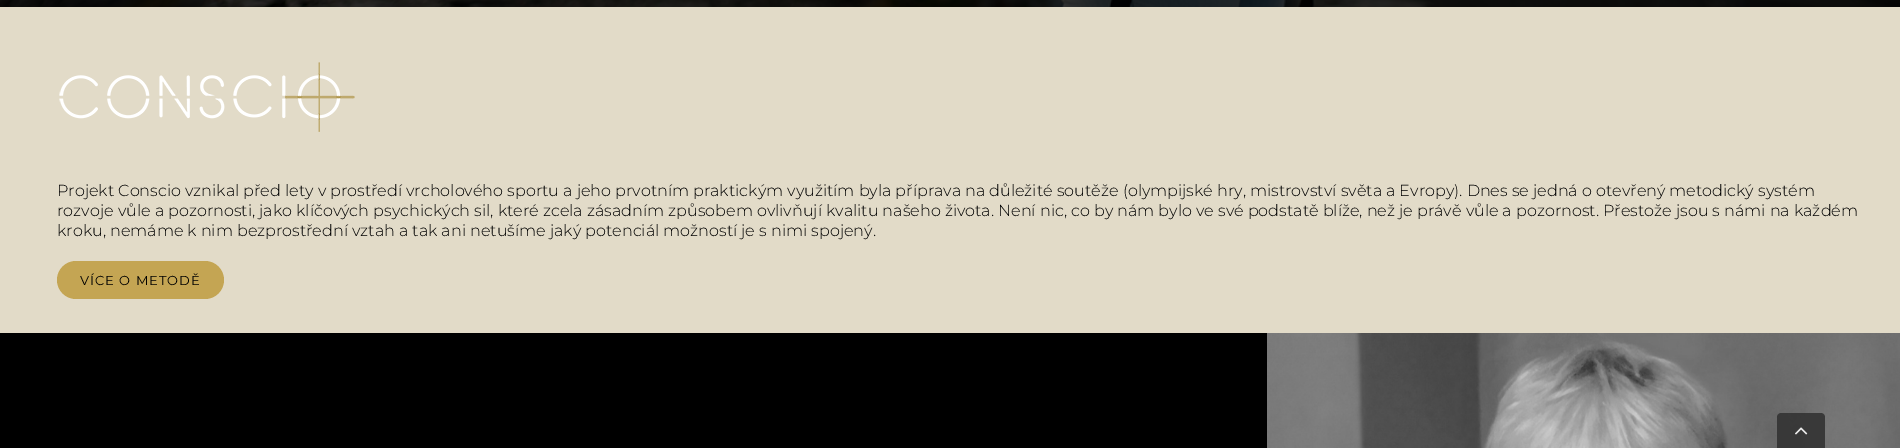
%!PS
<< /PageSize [1900 448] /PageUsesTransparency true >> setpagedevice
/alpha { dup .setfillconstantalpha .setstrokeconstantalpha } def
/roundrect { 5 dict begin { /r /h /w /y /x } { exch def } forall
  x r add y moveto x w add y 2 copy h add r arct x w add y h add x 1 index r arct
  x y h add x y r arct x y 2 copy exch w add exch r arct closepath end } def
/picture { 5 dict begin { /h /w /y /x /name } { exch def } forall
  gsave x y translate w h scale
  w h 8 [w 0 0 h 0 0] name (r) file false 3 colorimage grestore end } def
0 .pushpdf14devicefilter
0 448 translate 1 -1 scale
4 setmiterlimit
0.886 0.859 0.784 setrgbcolor
0 0 1900 448 rectfill
(img1.rgb) 0 0 1900 7 picture
(img2.rgb) 59 62 296 70 picture
/Montserrat-Light [16 0 0 -16 0 0] selectfont
0 setgray
57 196 moveto (Projekt Conscio vznikal před lety v prostředí vrcholového sportu a jeho prvotním praktickým využitím byla příprava na důležité soutěže \(olympijské hry, mistrovství světa a Evropy\). Dnes se jedná o otevřený metodický systém) show
57 216 moveto (rozvoje vůle a pozornosti, jako klíčových psychických sil, které zcela zásadním způsobem ovlivňují kvalitu našeho života. Není nic, co by nám bylo ve své podstatě blíže, než je právě vůle a pozornost. Přestože jsou s námi na každém) show
57 236 moveto (kroku, nemáme k nim bezprostřední vztah a tak ani netušíme jaký potenciál možností je s nimi spojený.) show
0.769 0.647 0.325 setrgbcolor
57 261 167 38 19 roundrect fill
/Montserrat-Regular [13 0 0 -13 0 0] selectfont
0 setgray
80 285 moveto 1 0 (VÍCE O METODĚ) ashow
0 333 1267 115 rectfill
(img3.rgb) 1267 333 633 115 picture
0.9 alpha
0.2 setgray
newpath 1781 413 moveto 1821 413 lineto 1823 413 1825 415 1825 417 curveto 1825 448 lineto 1777 448 lineto 1777 417 lineto 1777 415 1779 413 1781 413 curveto closepath fill
1 alpha
(img4.rgb) 1795 427 13 8 picture
.poppdf14devicefilter showpage
